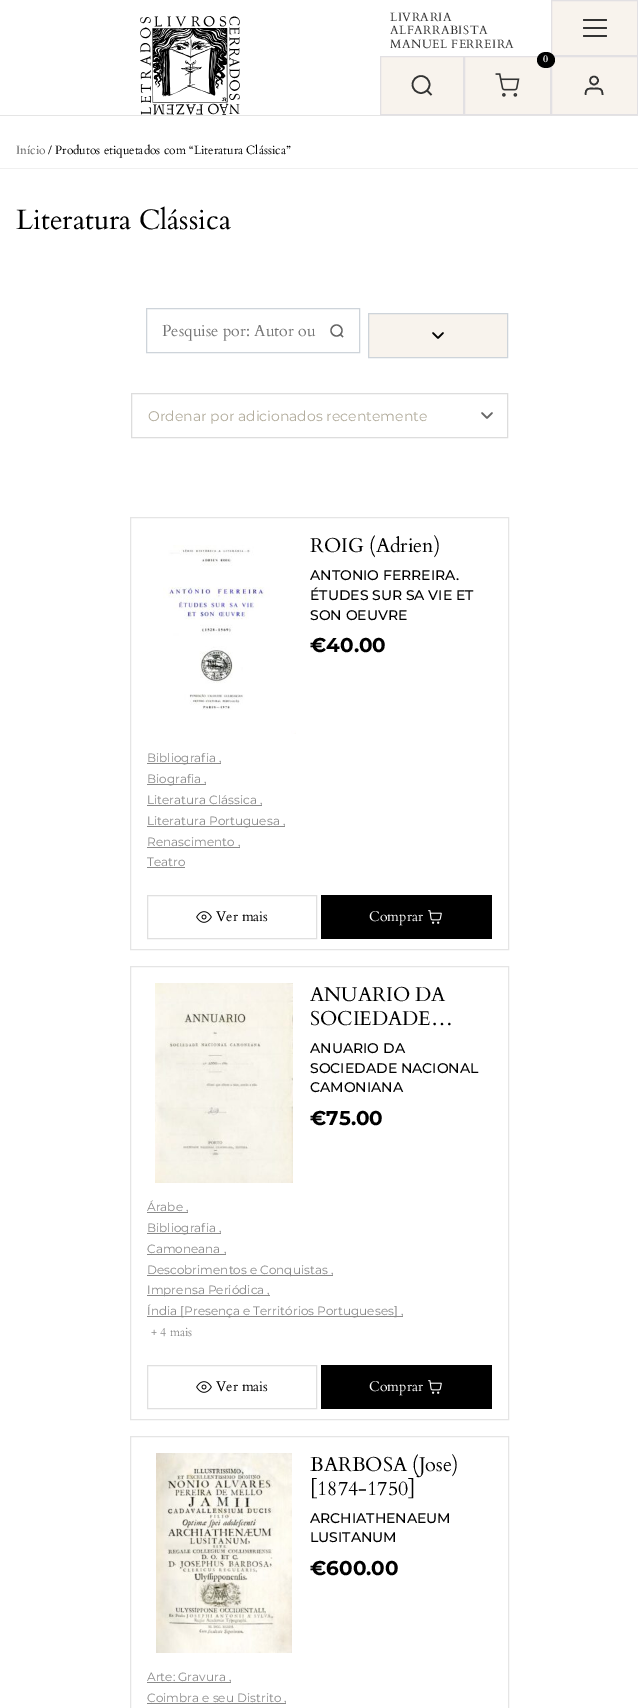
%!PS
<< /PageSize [638 1708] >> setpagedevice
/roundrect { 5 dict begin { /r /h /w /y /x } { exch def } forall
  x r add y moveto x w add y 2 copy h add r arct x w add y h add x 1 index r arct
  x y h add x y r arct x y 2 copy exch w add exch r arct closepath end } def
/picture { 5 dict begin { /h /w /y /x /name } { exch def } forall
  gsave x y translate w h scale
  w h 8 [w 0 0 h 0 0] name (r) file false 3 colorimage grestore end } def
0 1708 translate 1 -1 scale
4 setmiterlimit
1 setgray
0 0 638 1708 rectfill
0.898 setgray
0 115 638 1 rectfill
(img1.rgb) 140 16 100 99 picture
/Cardo-Regular [12 0 0 -12 0 0] selectfont
0.2 setgray
390 21 moveto 0.5 0 (LIVRARIA) ashow
390 34 moveto 0.5 0 (ALFARRABISTA) ashow
390 48 moveto 0.5 0 (MANUEL FERREIRA) ashow
0.973 0.953 0.929 setrgbcolor
newpath 551.5 0.5 moveto 637.5 0.5 lineto 637.5 55.5 lineto 551.5 55.5 lineto closepath gsave fill grestore
0.886 0.878 0.89 setrgbcolor
stroke
0.2 setgray
583 19 24 2 1 roundrect fill
583 27 24 2 1 roundrect fill
583 35 24 2 1 roundrect fill
0.973 0.953 0.929 setrgbcolor
381 57 256 57 rectfill
0.886 0.878 0.89 setrgbcolor
380.5 56.5 83 58 rectstroke
0.2 setgray
1.6 setlinewidth
newpath 421 84.5 8.5 0 360 arc closepath stroke
newpath 431.5 95 moveto 427 90.5 lineto stroke
0.886 0.878 0.89 setrgbcolor
1 setlinewidth
464.5 56.5 86 58 rectstroke
551.5 56.5 86 58 rectstroke
0 setgray
newpath 546 52 moveto 551 52 555 55.5 555 60 curveto 555 64.5 551 68 546 68 curveto 541 68 537 64.5 537 60 curveto 537 55.5 541 52 546 52 curveto closepath fill
/Cardo-Bold [10 0 0 -10 0 0] selectfont
1 setgray
543 62 moveto (0) show
(img2.rgb) 495 73 25 24 picture
0.2 setgray
1.6 setlinewidth
newpath 602.5 95 moveto 602.5 88 600 88.5 594 88.5 curveto 588 88.5 585.5 88 585.5 95 curveto stroke
newpath 594 80.5 4 0 360 arc closepath stroke
0.941 setgray
0 168 638 1 rectfill
/Cardo-Regular [12 0 0 -12 0 0] selectfont
0.4 setgray
16 154 moveto (Início) show
0 setgray
48 154 moveto (/ Produtos etiquetados com “Literatura Clássica”) show
/Cardo-Regular [28 0 0 -28 0 0] selectfont
16 229 moveto (Literatura Clássica) show
0.808 0.831 0.855 setrgbcolor
1 setlinewidth
146.5 308.5 213 44 rectstroke
/Cardo-Regular [16 0 0 -16 0 0] selectfont
0.459 setgray
162 336 moveto (Pesquise por: Autor ou) show
0.4 setgray
1.3 setlinewidth
newpath 336.5 330.5 5.5 0 360 arc closepath stroke
newpath 343 337 moveto 340 334 lineto stroke
0.973 0.953 0.929 setrgbcolor
newpath 368.5 313.5 moveto 507.5 313.5 lineto 507.5 357.5 lineto 368.5 357.5 lineto closepath gsave fill grestore
0.808 0.831 0.855 setrgbcolor
1 setlinewidth
stroke
0 setgray
1.5 setlinewidth
1 setlinecap
1 setlinejoin
newpath 433 333 moveto 438 338 lineto 443 333 lineto stroke
0.867 setgray
1 setlinewidth
0 setlinecap
0 setlinejoin
131.5 393.5 376 44 rectstroke
/Montserrat-Regular [14 0 0 -14 0 0] selectfont
0.694 0.671 0.608 setrgbcolor
148 421 moveto (Ordenar por adicionados recentemente) show
0.4 setgray
1.5 setlinewidth
1 setlinecap
1 setlinejoin
newpath 482 413 moveto 487 418 lineto 492 413 lineto stroke
0.898 setgray
1 setlinewidth
0 setlinecap
0 setlinejoin
130.5 517.5 378 432 rectstroke
(img3.rgb) 163 545 133 189 picture
/Cardo-Regular [20 0 0 -20 0 0] selectfont
0 setgray
310 552 moveto (ROIG \(Adrien\)) show
/Montserrat-Medium [14 0 0 -14 0 0] selectfont
310 580 moveto (ANTONIO FERREIRA.) show
310 600 moveto (ÉTUDES SUR SA VIE ET) show
310 620 moveto (SON OEUVRE) show
/Montserrat-Bold [20 0 0 -20 0 0] selectfont
310 652 moveto (€40.00) show
0.541 setgray
147 763 74 1 rectfill
/Montserrat-Regular [12 0 0 -12 0 0] selectfont
147 762 moveto (Bibliografia ,) show
147 784 59 1 rectfill
147 783 moveto (Biografia ,) show
147 805 115 1 rectfill
147 804 moveto (Literatura Clássica ,) show
147 826 138 1 rectfill
147 825 moveto (Literatura Portuguesa ,) show
147 847 93 1 rectfill
147 846 moveto (Renascimento ,) show
147 866 moveto (Teatro) show
147 867 38 1 rectfill
0.878 setgray
147.5 895.5 169 43 rectstroke
(img4.rgb) 196 911 16 12 picture
/Cardo-Regular [14 0 0 -14 0 0] selectfont
0 setgray
216 921 moveto (Ver mais) show
321 895 171 44 rectfill
1 setgray
369 921 moveto (Comprar) show
(img5.rgb) 428 910 14 14 picture
0.898 setgray
130.5 966.5 378 453 rectstroke
(img6.rgb) 155 983 138 200 picture
/Cardo-Regular [20 0 0 -20 0 0] selectfont
0 setgray
310 1001 moveto (ANUARIO DA) show
310 1025 moveto (SOCIEDADE…) show
/Montserrat-Medium [14 0 0 -14 0 0] selectfont
310 1053 moveto (ANUARIO DA) show
310 1073 moveto (SOCIEDADE NACIONAL) show
310 1092 moveto (CAMONIANA) show
/Montserrat-Bold [20 0 0 -20 0 0] selectfont
310 1125 moveto (€75.00) show
0.541 setgray
147 1212 41 1 rectfill
/Montserrat-Regular [12 0 0 -12 0 0] selectfont
147 1211 moveto (Árabe ,) show
147 1233 74 1 rectfill
147 1232 moveto (Bibliografia ,) show
147 1254 79 1 rectfill
147 1253 moveto (Camoneana ,) show
147 1275 186 1 rectfill
147 1274 moveto (Descobrimentos e Conquistas ,) show
147 1295 123 1 rectfill
147 1294 moveto (Imprensa Periódica ,) show
147 1316 256 1 rectfill
147 1315 moveto (Índia [Presença e Territórios Portugueses] ,) show
/Cardo-Regular [12 0 0 -12 0 0] selectfont
151 1336 moveto (+ 4 mais) show
0.878 setgray
147.5 1365.5 169 43 rectstroke
(img4.rgb) 196 1381 16 12 picture
/Cardo-Regular [14 0 0 -14 0 0] selectfont
0 setgray
216 1391 moveto (Ver mais) show
321 1365 171 44 rectfill
1 setgray
369 1391 moveto (Comprar) show
(img5.rgb) 428 1380 14 14 picture
0.898 setgray
130.5 1436.5 378 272 rectstroke
(img7.rgb) 156 1453 136 200 picture
/Cardo-Regular [20 0 0 -20 0 0] selectfont
0 setgray
310 1471 moveto (BARBOSA \(Jose\)) show
310 1495 moveto ([1874-1750]) show
/Montserrat-Medium [14 0 0 -14 0 0] selectfont
310 1523 moveto (ARCHIATHENAEUM) show
310 1542 moveto (LUSITANUM) show
/Montserrat-Bold [20 0 0 -20 0 0] selectfont
310 1575 moveto (€600.00) show
0.541 setgray
147 1682 84 1 rectfill
/Montserrat-Regular [12 0 0 -12 0 0] selectfont
147 1681 moveto (Arte: Gravura ,) show
147 1703 139 1 rectfill
147 1702 moveto (Coimbra e seu Distrito ,) show
showpage
